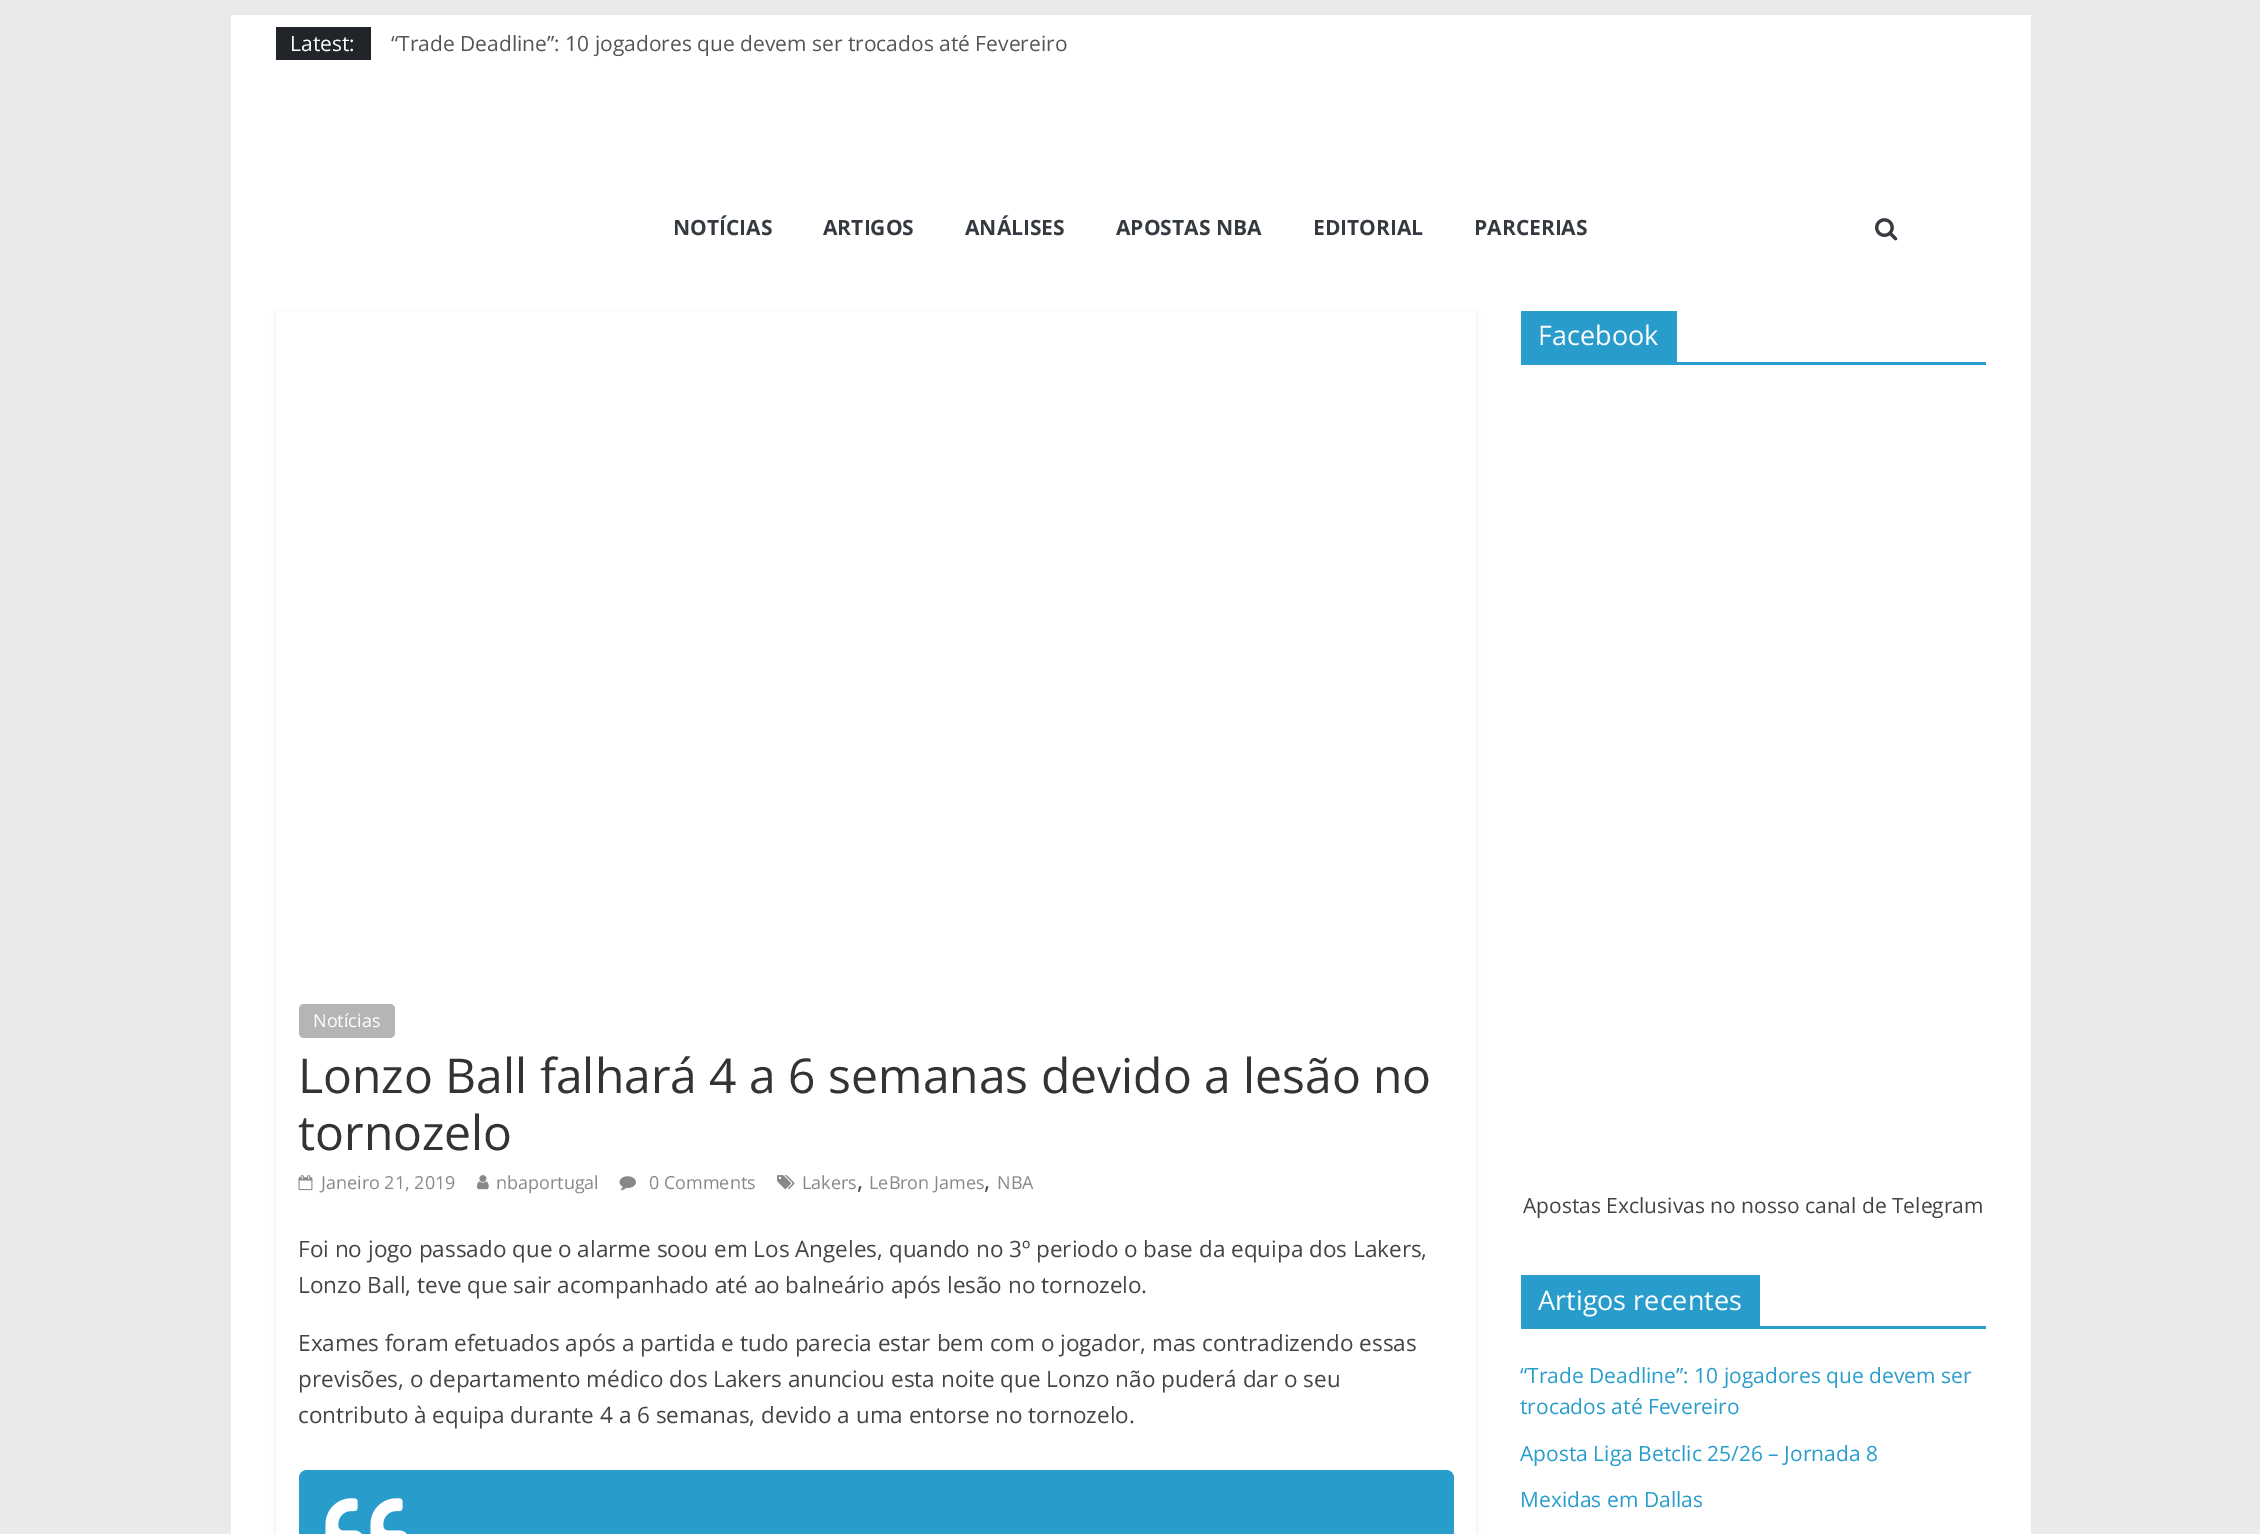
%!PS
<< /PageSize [2260 1534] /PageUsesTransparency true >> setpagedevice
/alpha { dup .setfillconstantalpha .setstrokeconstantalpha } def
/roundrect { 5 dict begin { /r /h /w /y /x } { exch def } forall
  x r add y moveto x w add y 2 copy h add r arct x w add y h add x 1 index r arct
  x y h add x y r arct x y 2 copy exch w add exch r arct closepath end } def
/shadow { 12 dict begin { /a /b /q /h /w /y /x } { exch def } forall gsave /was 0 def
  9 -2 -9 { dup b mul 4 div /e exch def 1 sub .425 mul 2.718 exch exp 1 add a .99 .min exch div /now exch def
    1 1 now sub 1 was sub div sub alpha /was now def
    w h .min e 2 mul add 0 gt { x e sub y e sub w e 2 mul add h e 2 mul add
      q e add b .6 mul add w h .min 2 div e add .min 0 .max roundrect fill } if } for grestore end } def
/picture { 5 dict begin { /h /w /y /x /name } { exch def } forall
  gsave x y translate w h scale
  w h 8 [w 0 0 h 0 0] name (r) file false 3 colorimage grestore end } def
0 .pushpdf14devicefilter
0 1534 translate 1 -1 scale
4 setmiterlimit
0.918 setgray
0 0 2260 1534 rectfill
1 setgray
231 15 1800 1519 rectfill
0.129 0.145 0.161 setrgbcolor
276 27 95 33 rectfill
/OpenSans-Regular [21 0 0 -21 0 0] selectfont
1 setgray
290 51 moveto (Latest:) show
0.333 setgray
391 51 moveto (“Trade Deadline”: 10 jogadores que devem ser trocados até Fevereiro) show
/OpenSans-Bold [21 0 0 -21 0 0] selectfont
0.204 0.227 0.251 setrgbcolor
673 235 moveto (NOTÍCIAS) show
823 235 moveto (ARTIGOS) show
965 235 moveto (ANÁLISES) show
1116 235 moveto (APOSTAS NBA) show
1313 235 moveto (EDITORIAL) show
1474 235 moveto (PARCERIAS) show
(img1.rgb) 1875 218 23 23 picture
gsave
newpath 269 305 moveto 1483 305 lineto 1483 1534 lineto 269 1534 lineto closepath 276 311 moveto 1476 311 lineto 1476 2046 lineto 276 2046 lineto closepath eoclip newpath
0 setgray
276 312 1200 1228 0 2 0.1 shadow
grestore
0.71 setgray
299 1004 96 34 5 roundrect fill
/OpenSans-Regular [18 0 0 -18 0 0] selectfont
1 setgray
313 1027 moveto (Notícias) show
/OpenSans-Regular [48 0 0 -48 0 0] selectfont
0.2 setgray
298 1093 moveto (Lonzo Ball falhará 4 a 6 semanas devido a lesão no) show
298 1150 moveto (tornozelo) show
(img2.rgb) 298 1175 15 16 picture
/OpenSans-Regular [18 0 0 -18 0 0] selectfont
0.533 setgray
321 1189 moveto (Janeiro 21, 2019) show
(img3.rgb) 477 1175 12 15 picture
496 1189 moveto (nbaportugal) show
(img4.rgb) 619 1176 17 15 picture
649 1189 moveto (0 Comments) show
(img5.rgb) 777 1175 18 14 picture
802 1189 moveto (Lakers) show
/OpenSans-Regular [24 0 0 -24 0 0] selectfont
0.267 setgray
857 1189 moveto (,) show
/OpenSans-Regular [18 0 0 -18 0 0] selectfont
0.533 setgray
869 1189 moveto (LeBron James) show
/OpenSans-Regular [24 0 0 -24 0 0] selectfont
0.267 setgray
984 1189 moveto (,) show
/OpenSans-Regular [18 0 0 -18 0 0] selectfont
0.533 setgray
997 1189 moveto (NBA) show
/OpenSans-Regular [22.5 0 0 -22.5 0 0] selectfont
0.267 setgray
298 1257 moveto (Foi no jogo passado que o alarme soou em Los Angeles, quando no 3º periodo o base da equipa dos Lakers,) show
298 1293 moveto (Lonzo Ball, teve que sair acompanhado até ao balneário após lesão no tornozelo.) show
298 1351 moveto (Exames foram efetuados após a partida e tudo parecia estar bem com o jogador, mas contradizendo essas) show
298 1387 moveto (previsões, o departamento médico dos Lakers anunciou esta noite que Lonzo não puderá dar o seu) show
298 1423 moveto (contributo à equipa durante 4 a 6 semanas, devido a uma entorse no tornozelo.) show
0.157 0.616 0.8 setrgbcolor
299 1470 1155 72 8 roundrect fill
(img6.rgb) 325 1498 82 36 picture
1521 362 465 3 rectfill
1521 311 156 51 rectfill
/OpenSans-Regular [27 0 0 -27 0 0] selectfont
1 setgray
1538 345 moveto (Facebook) show
/OpenSans-Regular [21 0 0 -21 0 0] selectfont
0.267 setgray
1523 1213 moveto (Apostas Exclusivas no nosso canal de Telegram) show
0.157 0.616 0.8 setrgbcolor
1521 1326 465 3 rectfill
1521 1275 239 51 rectfill
/OpenSans-Regular [27 0 0 -27 0 0] selectfont
1 setgray
1538 1310 moveto (Artigos recentes) show
/OpenSans-Regular [21 0 0 -21 0 0] selectfont
0.157 0.616 0.8 setrgbcolor
1520 1383 moveto (“Trade Deadline”: 10 jogadores que devem ser) show
1520 1414 moveto (trocados até Fevereiro) show
1520 1461 moveto (Aposta Liga Betclic 25/26 – Jornada 8) show
1520 1507 moveto (Mexidas em Dallas) show
.poppdf14devicefilter showpage
